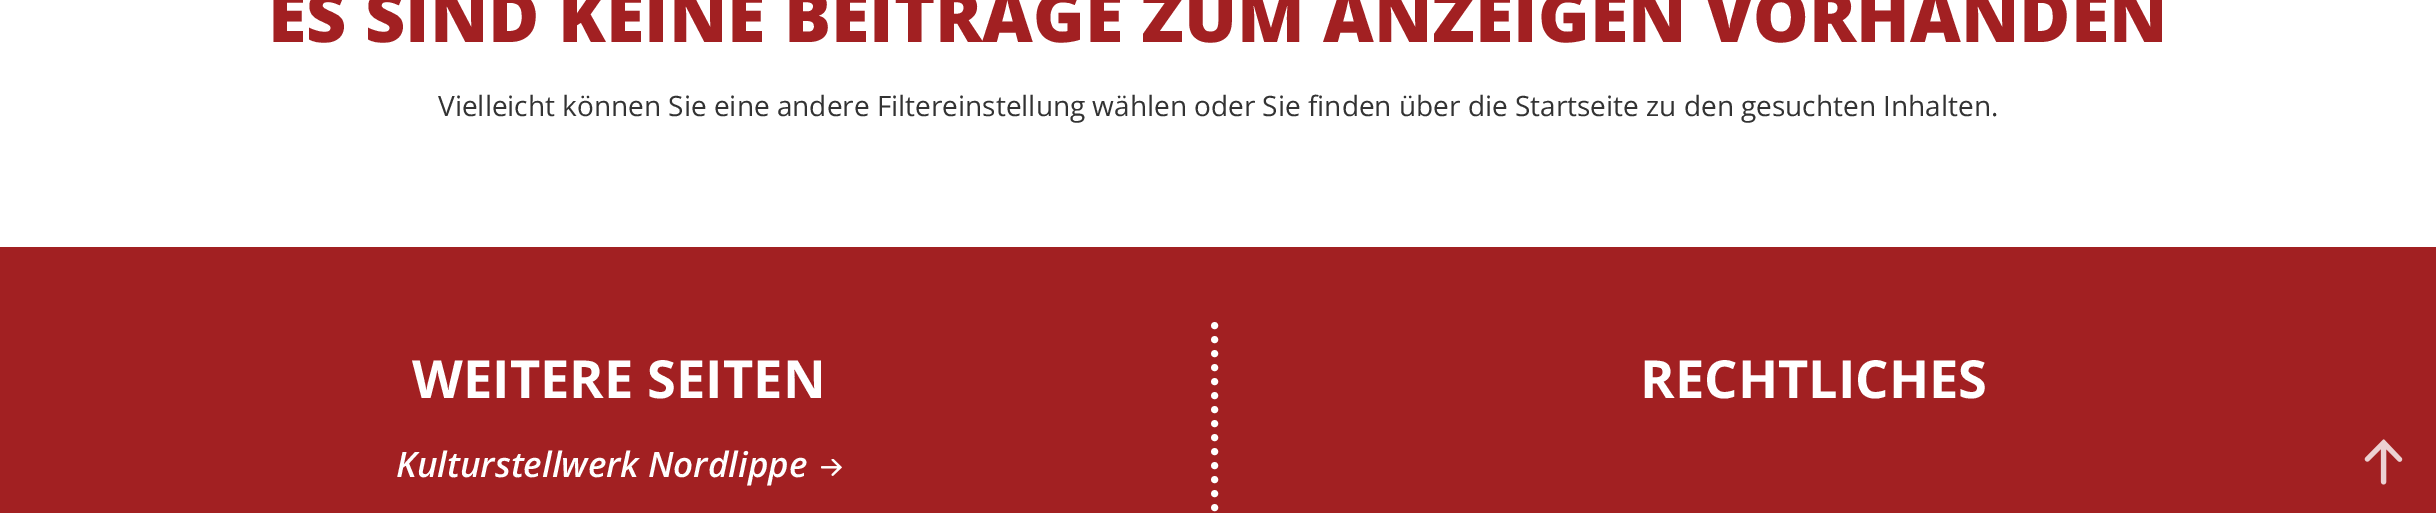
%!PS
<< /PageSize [2436 513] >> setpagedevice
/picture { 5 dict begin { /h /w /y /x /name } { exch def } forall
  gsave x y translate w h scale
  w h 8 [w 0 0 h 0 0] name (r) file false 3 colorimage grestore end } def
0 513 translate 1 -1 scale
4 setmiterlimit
1 setgray
0 0 2436 513 rectfill
/OpenSans-ExtraBold [70 0 0 -70 0 0] selectfont
0.635 0.125 0.133 setrgbcolor
268 42 moveto (ES SIND KEINE BEITRÄGE ZUM ANZEIGEN VORHANDEN) show
/OpenSans-Regular [28 0 0 -28 0 0] selectfont
0.2 setgray
438 116 moveto (Vielleicht können Sie eine andere Filtereinstellung wählen oder Sie finden über die Startseite zu den gesuchten Inhalten.) show
0.635 0.125 0.133 setrgbcolor
0 247 2436 266 rectfill
1 setgray
7 setlinewidth
1 setlinecap
[0 14] 0 setdash
newpath 1214.5 325.5 moveto 1214.5 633.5 lineto stroke
/OpenSans-Bold [52.5 0 0 -52.5 0 0] selectfont
412 398 moveto (WEITERE SEITEN) show
/OpenSans-SemiBoldItalic [35 0 0 -35 0 0] selectfont
396 477 moveto (Kulturstellwerk Nordlippe) show
(img1.rgb) 821 459 21 17 picture
/OpenSans-Bold [52.5 0 0 -52.5 0 0] selectfont
1640 398 moveto (RECHTLICHES) show
(img2.rgb) 2364 439 39 46 picture
showpage
